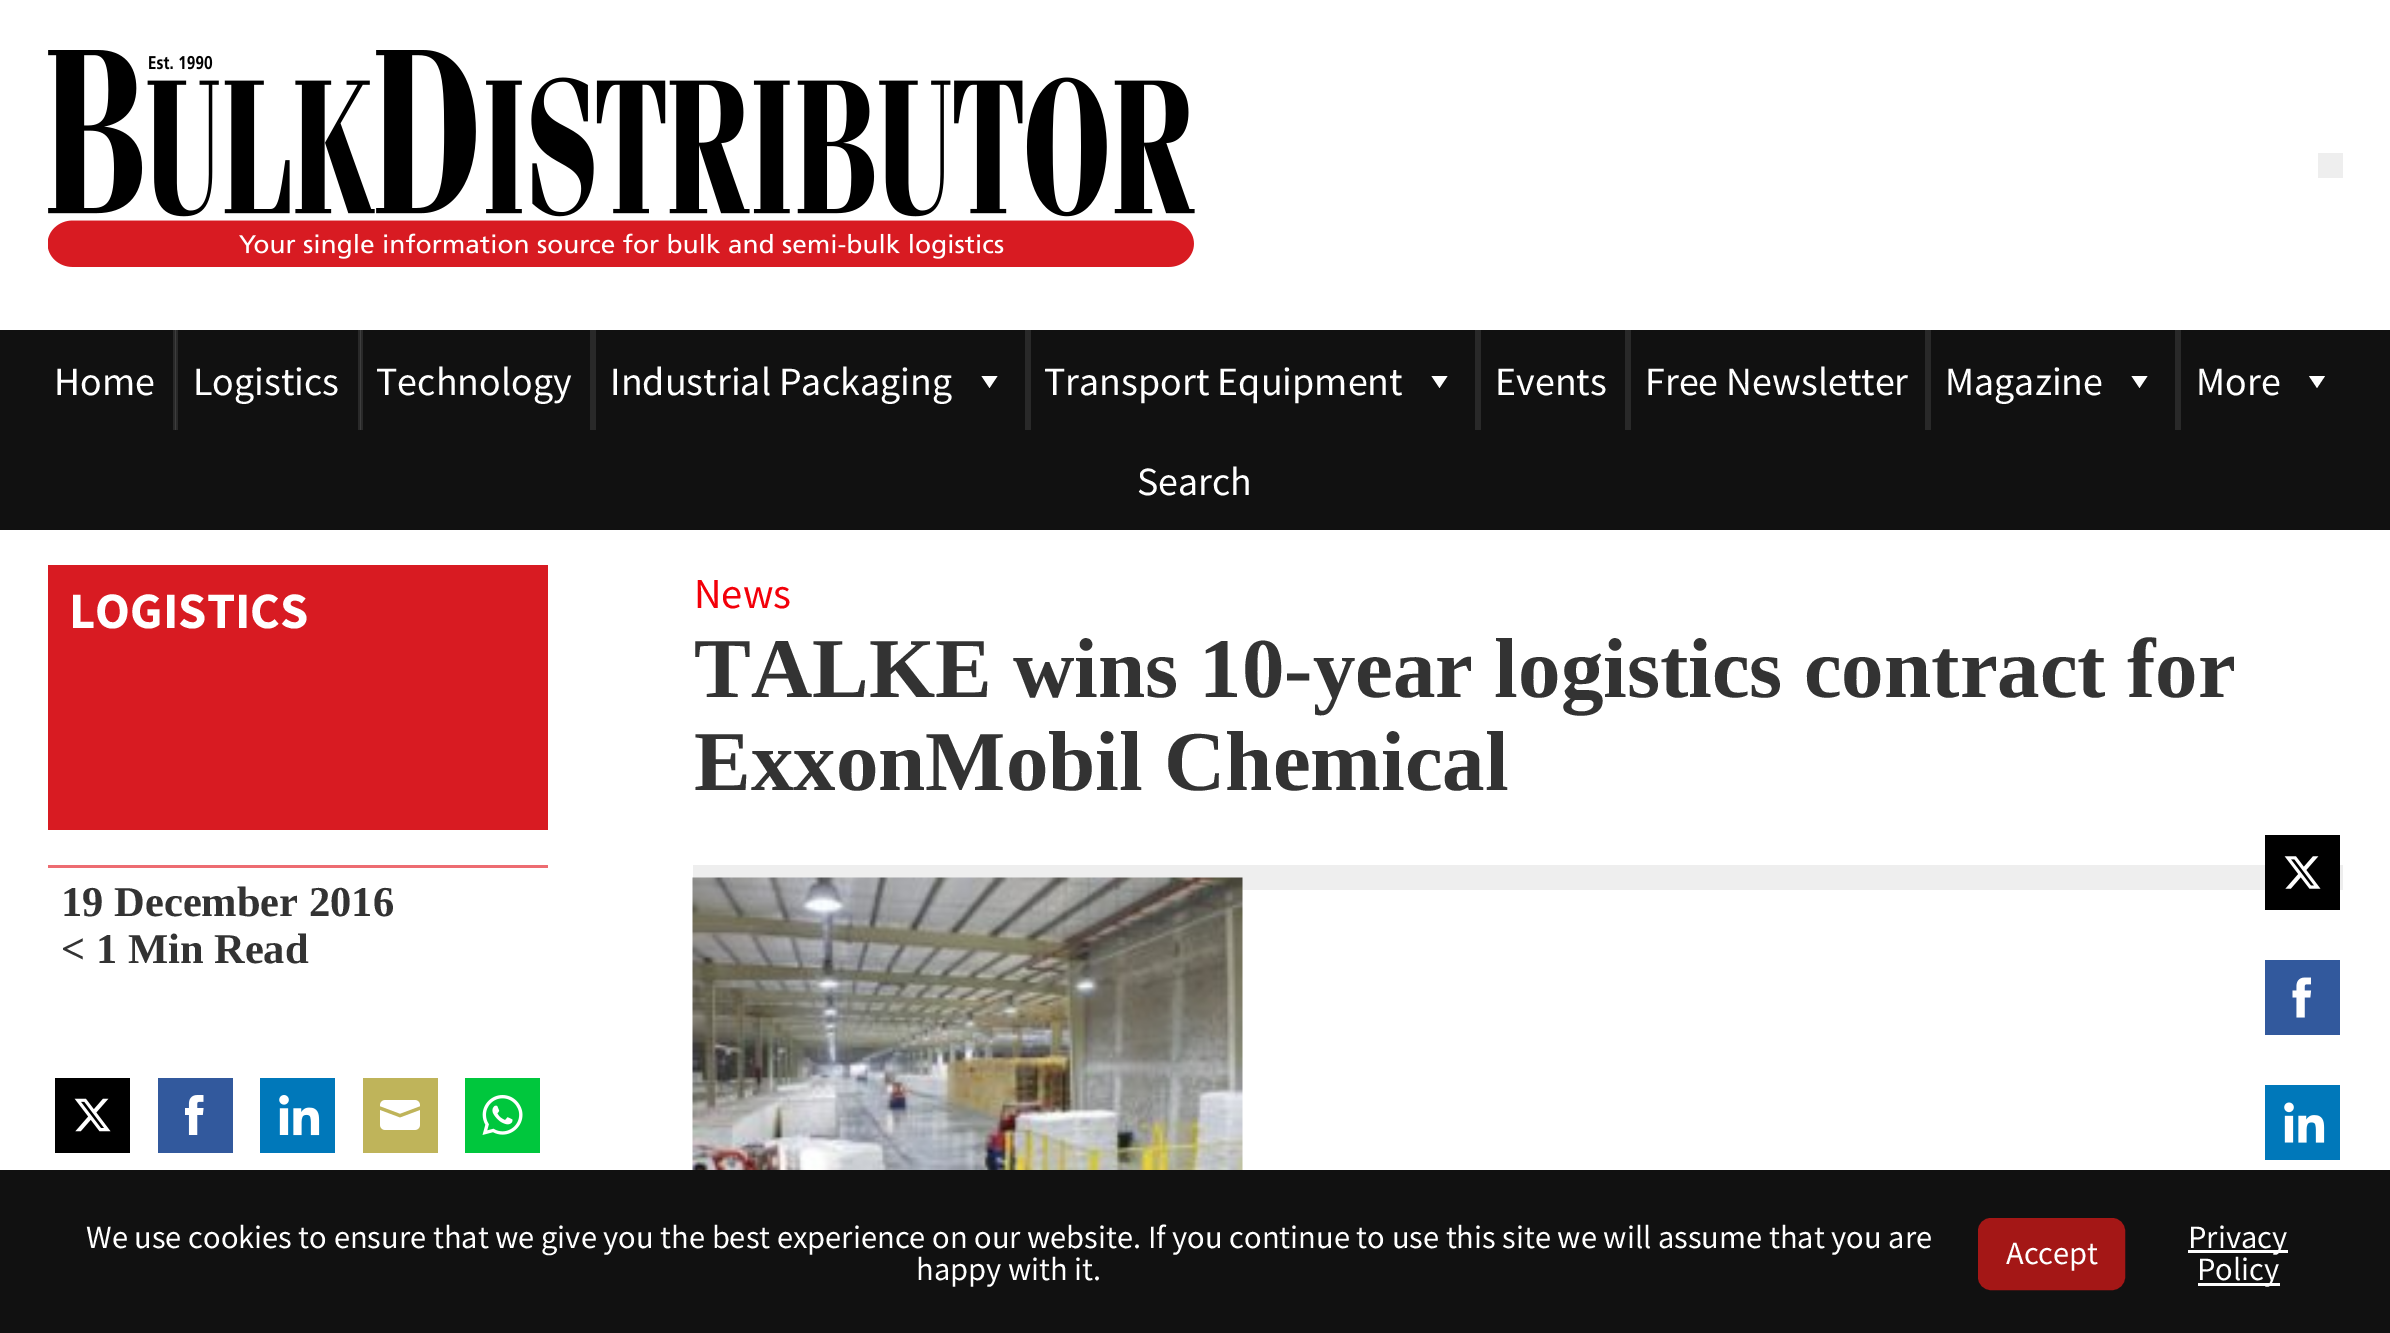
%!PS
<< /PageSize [2390 1333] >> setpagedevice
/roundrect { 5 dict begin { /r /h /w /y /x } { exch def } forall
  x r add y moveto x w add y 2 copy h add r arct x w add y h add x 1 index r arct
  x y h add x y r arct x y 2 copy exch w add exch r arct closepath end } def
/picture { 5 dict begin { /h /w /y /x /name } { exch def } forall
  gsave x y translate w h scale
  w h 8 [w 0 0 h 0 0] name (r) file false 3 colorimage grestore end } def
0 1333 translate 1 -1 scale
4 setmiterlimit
1 setgray
0 0 2390 1333 rectfill
(img1.rgb) 48 50 1147 217 picture
0.933 setgray
2318 153 25 25 rectfill
0.067 setgray
0 330 2390 200 rectfill
0.161 setgray
358 330 2 100 rectfill
173 330 2 100 rectfill
/SourceSansPro-Regular [40 0 0 -40 0 0] selectfont
1 setgray
54 395 moveto (Home) show
0.161 setgray
176 330 2 100 rectfill
0.243 setgray
175 330 1 100 rectfill
1 setgray
193 395 moveto (Logistics) show
0.161 setgray
361 330 2 100 rectfill
0.243 setgray
360 330 1 100 rectfill
1 setgray
376 395 moveto (Technology) show
0.161 setgray
590 330 6 100 rectfill
1 setgray
610 395 moveto (Industrial Packaging) show
newpath 997.5 376 moveto 989.5 388 lineto 981.5 376 lineto closepath fill
0.161 setgray
1025 330 6 100 rectfill
1 setgray
1044 395 moveto (Transport Equipment) show
newpath 1447.5 376 moveto 1439.5 388 lineto 1431.5 376 lineto closepath fill
0.161 setgray
1475 330 6 100 rectfill
1 setgray
1495 395 moveto (Events) show
0.161 setgray
1625 330 6 100 rectfill
1 setgray
1645 395 moveto (Free Newsletter) show
0.161 setgray
1925 330 6 100 rectfill
1 setgray
1945 395 moveto (Magazine) show
newpath 2147.5 376 moveto 2139.5 388 lineto 2131.5 376 lineto closepath fill
0.161 setgray
2175 330 6 100 rectfill
1 setgray
2196 395 moveto (More) show
newpath 2325 376 moveto 2317 388 lineto 2309 376 lineto closepath fill
1137 495 moveto (Search) show
0.847 0.106 0.133 setrgbcolor
48 565 500 265 rectfill
/SourceSansPro-Bold [51 0 0 -51 0 0] selectfont
1 setgray
69 628 moveto (LOGISTICS) show
/SourceSansPro-Regular [42.5 0 0 -42.5 0 0] selectfont
0.953 0 0.035 setrgbcolor
694 608 moveto (News) show
/LiberationSerif-Bold [85 0 0 -85 0 0] selectfont
0.2 setgray
694 697 moveto (TALKE wins 10-year logistics contract for) show
694 790 moveto (ExxonMobil Chemical) show
0.929 0.424 0.443 setrgbcolor
48 865 500 3 rectfill
/LiberationSerif-Bold [42.5 0 0 -42.5 0 0] selectfont
0.2 setgray
61 916 moveto (19 December 2016) show
61 963 moveto (< 1 Min Read) show
0 setgray
55 1078 75 75 rectfill
(img2.rgb) 74 1098 37 34 picture
0.196 0.349 0.616 setrgbcolor
158 1078 75 75 rectfill
(img3.rgb) 185 1095 19 40 picture
0 0.471 0.729 setrgbcolor
260 1078 75 75 rectfill
(img4.rgb) 279 1095 41 41 picture
0.749 0.706 0.353 setrgbcolor
363 1078 75 75 rectfill
(img5.rgb) 380 1100 40 30 picture
0 0.78 0.239 setrgbcolor
465 1078 75 75 rectfill
(img6.rgb) 482 1095 41 40 picture
0.933 setgray
693 865 1650 25 rectfill
(img7.rgb) 692 877 551 293 picture
0 setgray
2265 835 75 75 rectfill
(img8.rgb) 2284 856 37 33 picture
0.196 0.349 0.616 setrgbcolor
2265 960 75 75 rectfill
(img9.rgb) 2292 977 20 41 picture
0 0.471 0.729 setrgbcolor
2265 1085 75 75 rectfill
(img10.rgb) 2284 1102 41 41 picture
0.067 setgray
0 1170 2390 163 rectfill
/SourceSansPro-Regular [32.5 0 0 -32.5 0 0] selectfont
1 setgray
86 1248 moveto (We use cookies to ensure that we give you the best experience on our website. If you continue to use this site we will assume that you are) show
916 1280 moveto (happy with it.) show
0.643 0.09 0.086 setrgbcolor
1979.5 1219.5 144 69 11.5 roundrect gsave fill grestore
3 setlinewidth
stroke
1 setgray
2006 1264 moveto (Accept) show
2188 1250 100 3 rectfill
2188 1248 moveto (Privacy) show
2198 1283 82 3 rectfill
2197 1280 moveto (Policy) show
showpage
